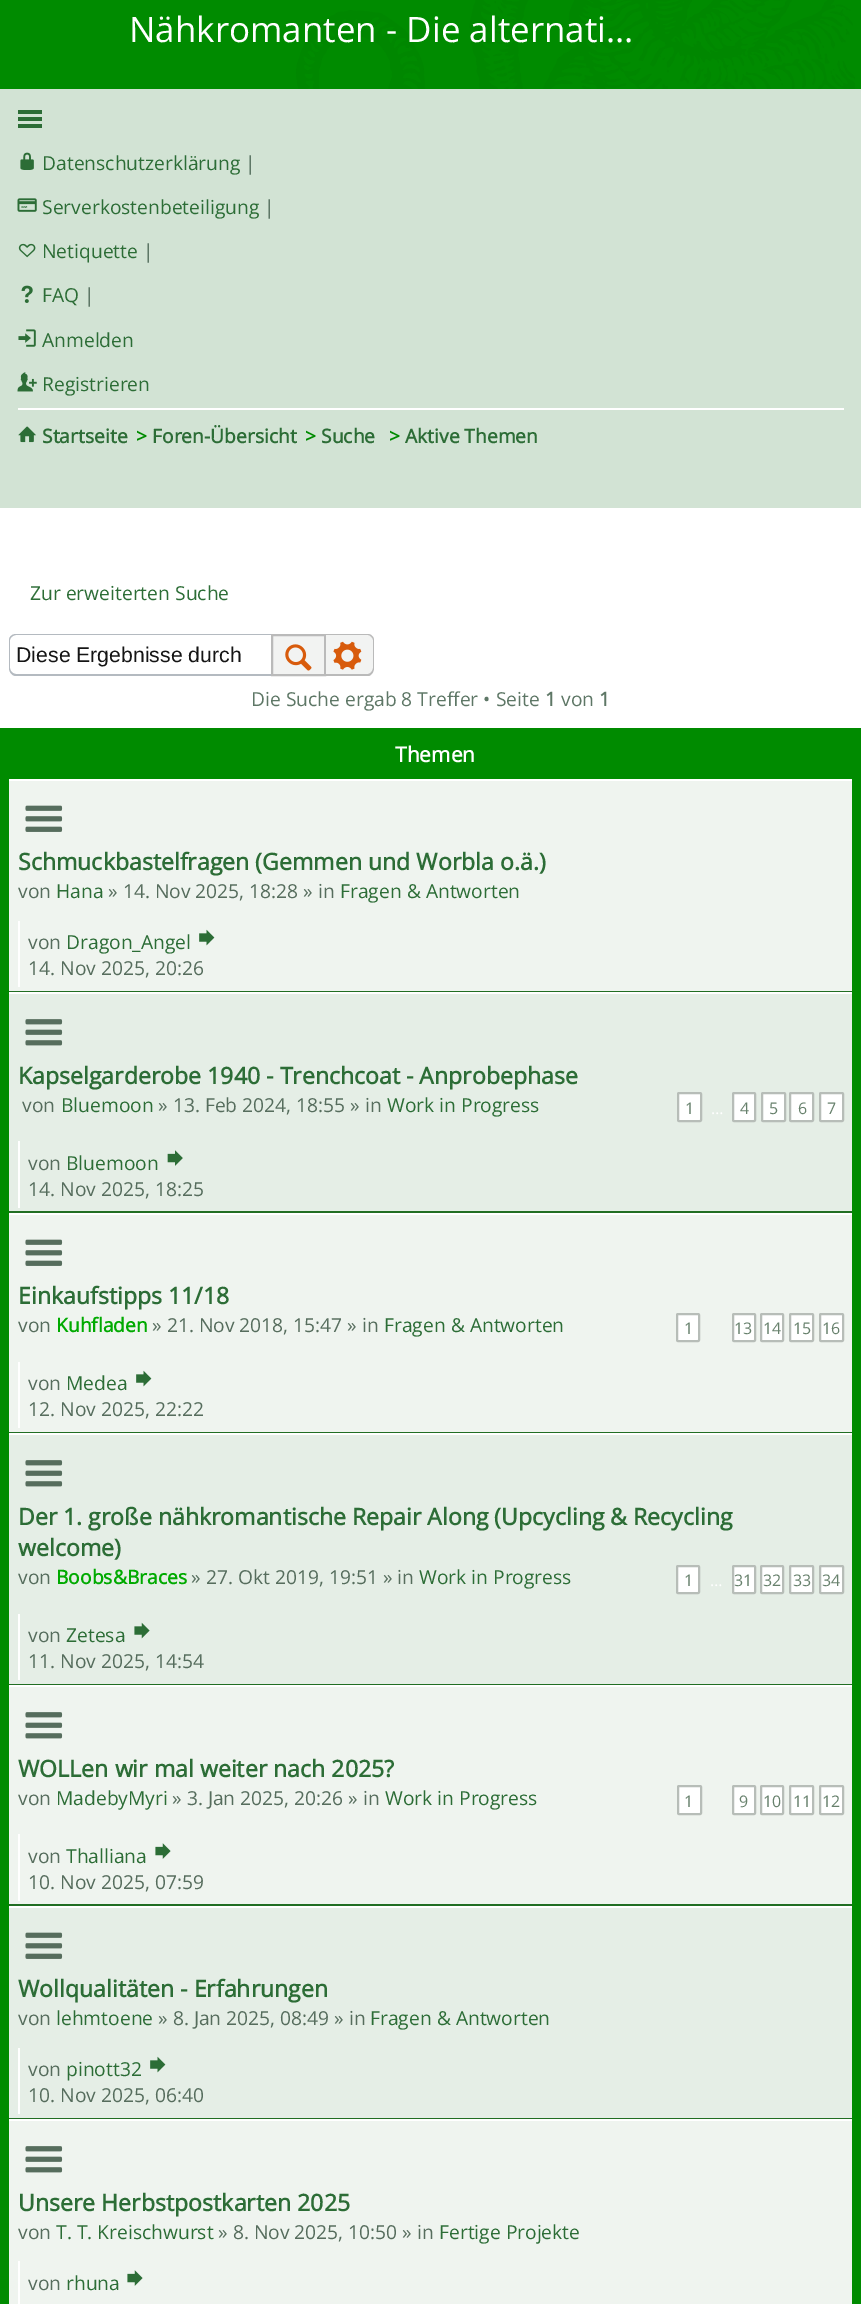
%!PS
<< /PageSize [861 2304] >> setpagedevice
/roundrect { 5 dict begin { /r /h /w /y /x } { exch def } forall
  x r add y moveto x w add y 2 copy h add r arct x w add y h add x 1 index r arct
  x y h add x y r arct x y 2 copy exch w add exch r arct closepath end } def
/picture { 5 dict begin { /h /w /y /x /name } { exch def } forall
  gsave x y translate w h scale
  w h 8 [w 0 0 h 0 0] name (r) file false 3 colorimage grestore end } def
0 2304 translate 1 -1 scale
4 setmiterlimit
1 setgray
0 0 861 2304 rectfill
0 0.545 0 setrgbcolor
0 0 861 89 rectfill
(img1.rgb) 296 0 559 89 picture
/OpenSans-Regular [35 0 0 -35 0 0] selectfont
1 setgray
129 42 moveto (Nähkromanten - Die alternati…) show
0.824 0.89 0.831 setrgbcolor
0 89 861 419 rectfill
0.173 0.427 0.212 setrgbcolor
18 110 24 4 rectfill
18 117 24 4 rectfill
18 124 24 4 rectfill
(img2.rgb) 20 152 14 18 picture
/OpenSans-Regular [19.25 0 0 -19.25 0 0] selectfont
42 170 moveto (Datenschutzerklärung) show
0.369 0.467 0.4 setrgbcolor
245 170 moveto (|) show
(img3.rgb) 17 198 20 14 picture
0.173 0.427 0.212 setrgbcolor
42 214 moveto (Serverkostenbeteiligung) show
0.369 0.467 0.4 setrgbcolor
264 214 moveto (|) show
(img4.rgb) 18 243 18 15 picture
0.173 0.427 0.212 setrgbcolor
42 258 moveto (Netiquette) show
0.369 0.467 0.4 setrgbcolor
143 258 moveto (|) show
(img5.rgb) 21 285 12 18 picture
0.173 0.427 0.212 setrgbcolor
42 302 moveto (FAQ) show
0.369 0.467 0.4 setrgbcolor
84 302 moveto (|) show
(img6.rgb) 18 329 18 18 picture
0.173 0.427 0.212 setrgbcolor
42 347 moveto (Anmelden) show
(img7.rgb) 17 372 20 20 picture
42 391 moveto (Registrieren) show
1 setgray
18 408 826 2 rectfill
(img8.rgb) 18 426 18 17 picture
/OpenSans-Bold [19.25 0 0 -19.25 0 0] selectfont
0.173 0.427 0.212 setrgbcolor
42 443 moveto (Startseite) show
0 0.545 0 setrgbcolor
136 443 moveto (>) show
0.173 0.427 0.212 setrgbcolor
152 443 moveto (Foren-Übersicht) show
0 0.545 0 setrgbcolor
305 443 moveto (>) show
0.173 0.427 0.212 setrgbcolor
321 443 moveto (Suche) show
0 0.545 0 setrgbcolor
389 443 moveto (>) show
0.173 0.427 0.212 setrgbcolor
405 443 moveto (Aktive Themen) show
/OpenSans-Regular [19.25 0 0 -19.25 0 0] selectfont
30 600 moveto (Zur erweiterten Suche) show
0.706 0.729 0.753 setrgbcolor
newpath 16 634 moveto 271 634 lineto 271 676 lineto 16 676 lineto 12 676 9 672 9 668 curveto 9 640 lineto 9 637 12 634 16 634 curveto closepath 16 635 moveto 271 635 lineto 271 674 lineto 16 674 lineto 13 674 10 671 10 668 curveto 10 640 lineto 10 638 13 635 16 635 curveto closepath eofill
/LiberationSans-Regular [21.25 0 0 -21.25 0 0] selectfont
0.082 setgray
16 662 moveto (Diese Ergebnisse durch) show
0.949 0.953 0.949 setrgbcolor
newpath 272 635 moveto 325 635 lineto 325 675 lineto 272 675 lineto closepath gsave fill grestore
0.729 setgray
2 setlinewidth
stroke
(img9.rgb) 285 644 27 27 picture
0.949 0.953 0.949 setrgbcolor
newpath 326 635 moveto 368 635 lineto 371 635 373 637 373 640 curveto 373 669 lineto 373 672 371 674 368 674 curveto 326 674 lineto closepath fill
0.729 setgray
newpath 326 634 moveto 368 634 lineto 371 634 374 637 374 640 curveto 374 668 lineto 374 672 371 676 368 676 curveto 326 676 lineto closepath 326 635 moveto 368 635 lineto 370 635 373 638 373 640 curveto 373 668 lineto 373 671 370 674 368 674 curveto 326 674 lineto closepath eofill
(img10.rgb) 333 641 29 29 picture
/OpenSans-Regular [19.25 0 0 -19.25 0 0] selectfont
0.369 0.467 0.4 setrgbcolor
251 706 moveto (Die Suche ergab 8 Treffer • Seite) show
/OpenSans-Bold [19.25 0 0 -19.25 0 0] selectfont
545 706 moveto (1) show
/OpenSans-Regular [19.25 0 0 -19.25 0 0] selectfont
561 706 moveto (von) show
/OpenSans-Bold [19.25 0 0 -19.25 0 0] selectfont
599 706 moveto (1) show
0 0.545 0 setrgbcolor
0 728 861 1576 rectfill
/OpenSans-Bold [21 0 0 -21 0 0] selectfont
1 setgray
395 762 moveto (Themen) show
0.937 0.957 0.937 setrgbcolor
9 781 843 210 rectfill
1 setgray
9 779 843 2 rectfill
0.129 0.431 0.137 setrgbcolor
9 991 843 1 rectfill
(img11.rgb) 25 805 38 27 picture
/OpenSans-Bold [23.1 0 0 -23.1 0 0] selectfont
0.173 0.427 0.212 setrgbcolor
18 870 moveto (Schmuckbastelfragen \(Gemmen und Worbla o.ä.\)) show
/OpenSans-Regular [19.25 0 0 -19.25 0 0] selectfont
0.337 0.427 0.365 setrgbcolor
18 898 moveto (von) show
0.173 0.427 0.212 setrgbcolor
56 898 moveto (Hana) show
0.337 0.427 0.365 setrgbcolor
108 898 moveto (» 14. Nov 2025, 18:28 » in) show
0.173 0.427 0.212 setrgbcolor
340 898 moveto (Fragen & Antworten) show
1 setgray
18 921 2 66 rectfill
0.337 0.427 0.365 setrgbcolor
28 949 moveto (von) show
0.173 0.427 0.212 setrgbcolor
66 949 moveto (Dragon_Angel) show
(img12.rgb) 199 929 16 17 picture
0.337 0.427 0.365 setrgbcolor
28 975 moveto (14. Nov 2025, 20:26) show
0.898 0.933 0.902 setrgbcolor
9 994 843 217 rectfill
1 setgray
9 992 843 2 rectfill
0.129 0.431 0.137 setrgbcolor
9 1211 843 2 rectfill
(img13.rgb) 25 1019 38 27 picture
/OpenSans-Bold [23.1 0 0 -23.1 0 0] selectfont
0.173 0.427 0.212 setrgbcolor
18 1084 moveto (Kapselgarderobe 1940 - Trenchcoat - Anprobephase) show
/OpenSans-Regular [19.25 0 0 -19.25 0 0] selectfont
0.337 0.427 0.365 setrgbcolor
22 1112 moveto (von) show
0.173 0.427 0.212 setrgbcolor
61 1112 moveto (Bluemoon) show
0.337 0.427 0.365 setrgbcolor
158 1112 moveto (» 13. Feb 2024, 18:55 » in) show
0.173 0.427 0.212 setrgbcolor
387 1112 moveto (Work in Progress) show
1 setgray
678 1093 23 28 1 roundrect gsave fill grestore
0.718 0.741 0.722 setrgbcolor
stroke
/OpenSans-Regular [16 0 0 -16 0 0] selectfont
0.404 0.506 0.424 setrgbcolor
685 1114 moveto (1) show
1 setgray
711 1114 moveto (…) show
733 1093 22 28 1 roundrect gsave fill grestore
0.718 0.741 0.722 setrgbcolor
stroke
0.404 0.506 0.424 setrgbcolor
740 1114 moveto (4) show
1 setgray
762 1093 23 28 1 roundrect gsave fill grestore
0.718 0.741 0.722 setrgbcolor
stroke
0.404 0.506 0.424 setrgbcolor
769 1114 moveto (5) show
1 setgray
790 1093 23 28 1 roundrect gsave fill grestore
0.718 0.741 0.722 setrgbcolor
stroke
0.404 0.506 0.424 setrgbcolor
798 1114 moveto (6) show
1 setgray
820 1093 23 28 1 roundrect gsave fill grestore
0.718 0.741 0.722 setrgbcolor
stroke
0.404 0.506 0.424 setrgbcolor
827 1114 moveto (7) show
1 setgray
18 1141 2 67 rectfill
/OpenSans-Regular [19.25 0 0 -19.25 0 0] selectfont
0.337 0.427 0.365 setrgbcolor
28 1170 moveto (von) show
0.173 0.427 0.212 setrgbcolor
66 1170 moveto (Bluemoon) show
(img14.rgb) 167 1150 16 16 picture
0.337 0.427 0.365 setrgbcolor
28 1196 moveto (14. Nov 2025, 18:25) show
0.937 0.957 0.937 setrgbcolor
9 1215 843 217 rectfill
1 setgray
9 1213 843 2 rectfill
0.129 0.431 0.137 setrgbcolor
9 1432 843 1 rectfill
(img11.rgb) 25 1239 38 27 picture
/OpenSans-Bold [23.1 0 0 -23.1 0 0] selectfont
0.173 0.427 0.212 setrgbcolor
18 1304 moveto (Einkaufstipps 11/18) show
/OpenSans-Regular [19.25 0 0 -19.25 0 0] selectfont
0.337 0.427 0.365 setrgbcolor
18 1332 moveto (von) show
/OpenSans-Bold [19.25 0 0 -19.25 0 0] selectfont
0 0.667 0 setrgbcolor
56 1332 moveto (Kuhfladen) show
/OpenSans-Regular [19.25 0 0 -19.25 0 0] selectfont
0.337 0.427 0.365 setrgbcolor
152 1332 moveto (» 21. Nov 2018, 15:47 » in) show
0.173 0.427 0.212 setrgbcolor
384 1332 moveto (Fragen & Antworten) show
1 setgray
677 1314 22 27 1 roundrect gsave fill grestore
0.718 0.741 0.722 setrgbcolor
stroke
/OpenSans-Regular [16 0 0 -16 0 0] selectfont
0.404 0.506 0.424 setrgbcolor
684 1334 moveto (1) show
1 setgray
733 1314 22 27 1 roundrect gsave fill grestore
0.718 0.741 0.722 setrgbcolor
stroke
0.404 0.506 0.424 setrgbcolor
734 1334 moveto (13) show
1 setgray
761 1314 22 27 1 roundrect gsave fill grestore
0.718 0.741 0.722 setrgbcolor
stroke
0.404 0.506 0.424 setrgbcolor
763 1334 moveto (14) show
1 setgray
790 1314 23 27 1 roundrect gsave fill grestore
0.718 0.741 0.722 setrgbcolor
stroke
0.404 0.506 0.424 setrgbcolor
793 1334 moveto (15) show
1 setgray
820 1314 23 27 1 roundrect gsave fill grestore
0.718 0.741 0.722 setrgbcolor
stroke
0.404 0.506 0.424 setrgbcolor
822 1334 moveto (16) show
1 setgray
18 1362 2 66 rectfill
/OpenSans-Regular [19.25 0 0 -19.25 0 0] selectfont
0.337 0.427 0.365 setrgbcolor
28 1390 moveto (von) show
0.173 0.427 0.212 setrgbcolor
66 1390 moveto (Medea) show
(img12.rgb) 136 1370 16 17 picture
0.337 0.427 0.365 setrgbcolor
28 1416 moveto (12. Nov 2025, 22:22) show
0.898 0.933 0.902 setrgbcolor
9 1435 843 249 rectfill
1 setgray
9 1433 843 2 rectfill
0.129 0.431 0.137 setrgbcolor
9 1684 843 1 rectfill
(img13.rgb) 25 1460 38 27 picture
/OpenSans-Bold [23.1 0 0 -23.1 0 0] selectfont
0.173 0.427 0.212 setrgbcolor
18 1525 moveto (Der 1. große nähkromantische Repair Along \(Upcycling & Recycling) show
18 1556 moveto (welcome\)) show
/OpenSans-Regular [19.25 0 0 -19.25 0 0] selectfont
0.337 0.427 0.365 setrgbcolor
18 1584 moveto (von) show
/OpenSans-Bold [19.25 0 0 -19.25 0 0] selectfont
0 0.667 0 setrgbcolor
56 1584 moveto (Boobs&Braces) show
/OpenSans-Regular [19.25 0 0 -19.25 0 0] selectfont
0.337 0.427 0.365 setrgbcolor
191 1584 moveto (» 27. Okt 2019, 19:51 » in) show
0.173 0.427 0.212 setrgbcolor
419 1584 moveto (Work in Progress) show
1 setgray
677 1566 22 27 1 roundrect gsave fill grestore
0.718 0.741 0.722 setrgbcolor
stroke
/OpenSans-Regular [16 0 0 -16 0 0] selectfont
0.404 0.506 0.424 setrgbcolor
684 1586 moveto (1) show
1 setgray
710 1586 moveto (…) show
733 1566 22 27 1 roundrect gsave fill grestore
0.718 0.741 0.722 setrgbcolor
stroke
0.404 0.506 0.424 setrgbcolor
734 1586 moveto (31) show
1 setgray
761 1566 22 27 1 roundrect gsave fill grestore
0.718 0.741 0.722 setrgbcolor
stroke
0.404 0.506 0.424 setrgbcolor
763 1586 moveto (32) show
1 setgray
790 1566 23 27 1 roundrect gsave fill grestore
0.718 0.741 0.722 setrgbcolor
stroke
0.404 0.506 0.424 setrgbcolor
793 1586 moveto (33) show
1 setgray
820 1566 23 27 1 roundrect gsave fill grestore
0.718 0.741 0.722 setrgbcolor
stroke
0.404 0.506 0.424 setrgbcolor
822 1586 moveto (34) show
1 setgray
18 1614 2 66 rectfill
/OpenSans-Regular [19.25 0 0 -19.25 0 0] selectfont
0.337 0.427 0.365 setrgbcolor
28 1642 moveto (von) show
0.173 0.427 0.212 setrgbcolor
66 1642 moveto (Zetesa) show
(img15.rgb) 134 1622 16 17 picture
0.337 0.427 0.365 setrgbcolor
28 1668 moveto (11. Nov 2025, 14:54) show
0.937 0.957 0.937 setrgbcolor
9 1687 843 217 rectfill
1 setgray
9 1685 843 2 rectfill
0.129 0.431 0.137 setrgbcolor
9 1904 843 2 rectfill
(img16.rgb) 25 1712 38 27 picture
/OpenSans-Bold [23.1 0 0 -23.1 0 0] selectfont
0.173 0.427 0.212 setrgbcolor
18 1777 moveto (WOLLen wir mal weiter nach 2025?) show
/OpenSans-Regular [19.25 0 0 -19.25 0 0] selectfont
0.337 0.427 0.365 setrgbcolor
18 1805 moveto (von) show
0.173 0.427 0.212 setrgbcolor
56 1805 moveto (MadebyMyri) show
0.337 0.427 0.365 setrgbcolor
172 1805 moveto (» 3. Jan 2025, 20:26 » in) show
0.173 0.427 0.212 setrgbcolor
385 1805 moveto (Work in Progress) show
1 setgray
678 1786 23 28 1 roundrect gsave fill grestore
0.718 0.741 0.722 setrgbcolor
stroke
/OpenSans-Regular [16 0 0 -16 0 0] selectfont
0.404 0.506 0.424 setrgbcolor
684 1807 moveto (1) show
1 setgray
733 1786 22 28 1 roundrect gsave fill grestore
0.718 0.741 0.722 setrgbcolor
stroke
0.404 0.506 0.424 setrgbcolor
739 1807 moveto (9) show
1 setgray
761 1786 22 28 1 roundrect gsave fill grestore
0.718 0.741 0.722 setrgbcolor
stroke
0.404 0.506 0.424 setrgbcolor
763 1807 moveto (10) show
1 setgray
790 1786 23 28 1 roundrect gsave fill grestore
0.718 0.741 0.722 setrgbcolor
stroke
0.404 0.506 0.424 setrgbcolor
793 1807 moveto (11) show
1 setgray
820 1786 23 28 1 roundrect gsave fill grestore
0.718 0.741 0.722 setrgbcolor
stroke
0.404 0.506 0.424 setrgbcolor
822 1807 moveto (12) show
1 setgray
18 1834 2 67 rectfill
/OpenSans-Regular [19.25 0 0 -19.25 0 0] selectfont
0.337 0.427 0.365 setrgbcolor
28 1863 moveto (von) show
0.173 0.427 0.212 setrgbcolor
66 1863 moveto (Thalliana) show
(img17.rgb) 155 1843 16 16 picture
0.337 0.427 0.365 setrgbcolor
28 1889 moveto (10. Nov 2025, 07:59) show
0.898 0.933 0.902 setrgbcolor
9 1908 843 210 rectfill
1 setgray
9 1906 843 2 rectfill
0.129 0.431 0.137 setrgbcolor
9 2118 843 1 rectfill
(img18.rgb) 25 1932 38 27 picture
/OpenSans-Bold [23.1 0 0 -23.1 0 0] selectfont
0.173 0.427 0.212 setrgbcolor
18 1997 moveto (Wollqualitäten - Erfahrungen) show
/OpenSans-Regular [19.25 0 0 -19.25 0 0] selectfont
0.337 0.427 0.365 setrgbcolor
18 2025 moveto (von) show
0.173 0.427 0.212 setrgbcolor
56 2025 moveto (lehmtoene) show
0.337 0.427 0.365 setrgbcolor
158 2025 moveto (» 8. Jan 2025, 08:49 » in) show
0.173 0.427 0.212 setrgbcolor
370 2025 moveto (Fragen & Antworten) show
1 setgray
18 2048 2 66 rectfill
0.337 0.427 0.365 setrgbcolor
28 2076 moveto (von) show
0.173 0.427 0.212 setrgbcolor
66 2076 moveto (pinott32) show
(img19.rgb) 150 2056 16 17 picture
0.337 0.427 0.365 setrgbcolor
28 2102 moveto (10. Nov 2025, 06:40) show
0.937 0.957 0.937 setrgbcolor
9 2121 843 183 rectfill
1 setgray
9 2119 843 2 rectfill
(img16.rgb) 25 2146 38 27 picture
/OpenSans-Bold [23.1 0 0 -23.1 0 0] selectfont
0.173 0.427 0.212 setrgbcolor
18 2211 moveto (Unsere Herbstpostkarten 2025) show
/OpenSans-Regular [19.25 0 0 -19.25 0 0] selectfont
0.337 0.427 0.365 setrgbcolor
18 2239 moveto (von) show
0.173 0.427 0.212 setrgbcolor
56 2239 moveto (T. T. Kreischwurst) show
0.337 0.427 0.365 setrgbcolor
218 2239 moveto (» 8. Nov 2025, 10:50 » in) show
0.173 0.427 0.212 setrgbcolor
439 2239 moveto (Fertige Projekte) show
1 setgray
18 2261 2 43 rectfill
0.337 0.427 0.365 setrgbcolor
28 2290 moveto (von) show
0.173 0.427 0.212 setrgbcolor
66 2290 moveto (rhuna) show
(img17.rgb) 127 2270 16 16 picture
showpage
